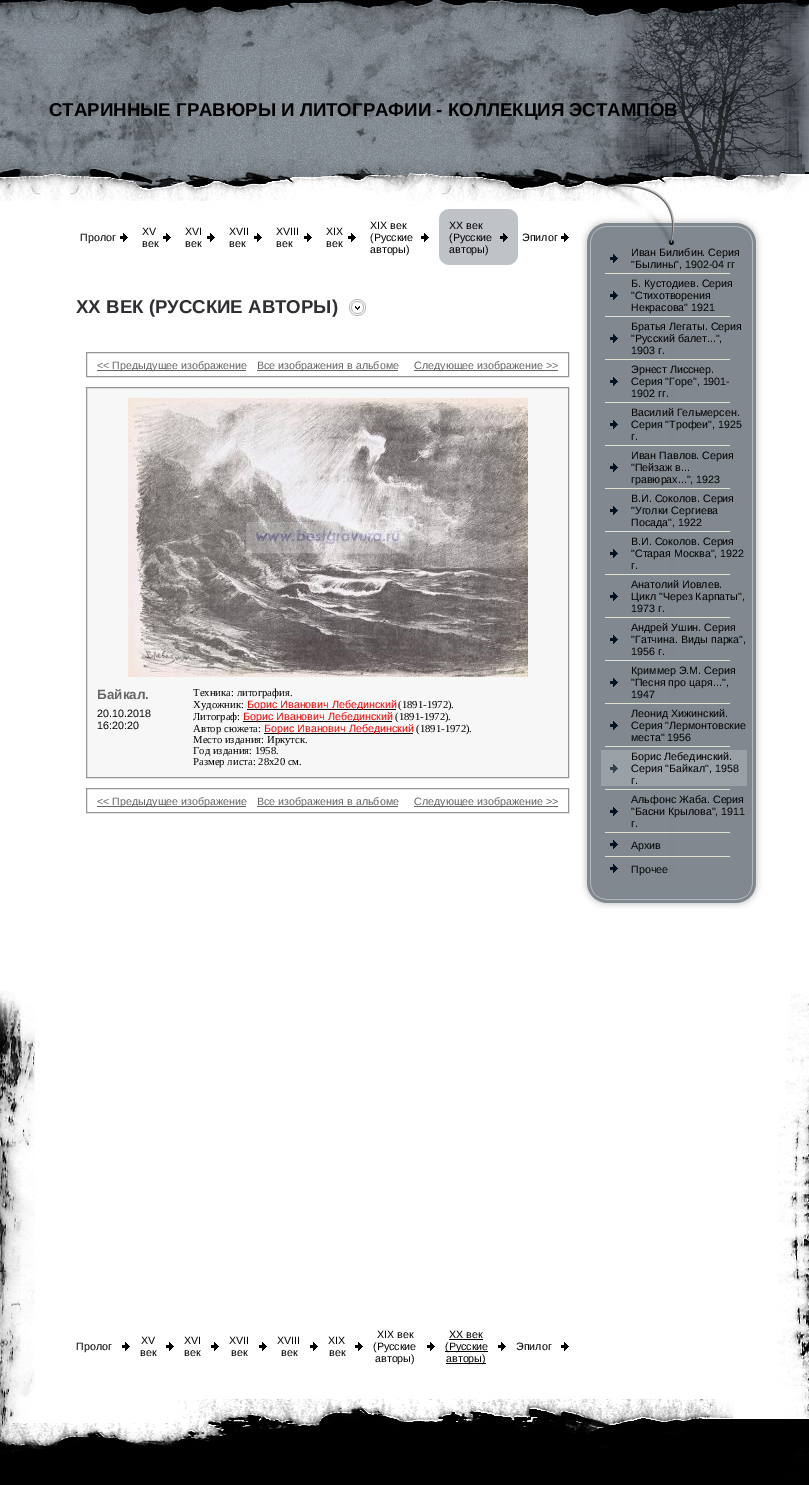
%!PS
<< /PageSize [809 1485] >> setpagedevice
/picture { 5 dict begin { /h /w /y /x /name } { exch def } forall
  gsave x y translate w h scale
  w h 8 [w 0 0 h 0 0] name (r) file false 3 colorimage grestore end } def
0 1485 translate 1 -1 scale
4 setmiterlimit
1 setgray
0 0 809 1485 rectfill
(img1.rgb) 0 0 55 202 picture
(img2.rgb) 55 0 754 209 picture
/LiberationSans-Bold [18.65 0 0 -18.65 0 0] selectfont
0 setgray
49 116 moveto (СТАРИННЫЕ ГРАВЮРЫ И ЛИТОГРАФИИ - КОЛЛЕКЦИЯ ЭСТАМПОВ) show
(img3.rgb) 0 990 49 495 picture
/LiberationSans-Regular [10.7 0 0 -10.7 0 0] selectfont
80 241 moveto (Пролог) show
(img4.rgb) 120 233 8 9 picture
142 235 moveto (XV) show
142 247 moveto (век) show
(img4.rgb) 163 233 8 9 picture
185 235 moveto (XVI) show
185 247 moveto (век) show
(img4.rgb) 207 233 8 9 picture
229 235 moveto (XVII) show
229 247 moveto (век) show
(img4.rgb) 254 233 8 9 picture
276 235 moveto (XVIII) show
276 247 moveto (век) show
(img4.rgb) 304 233 8 9 picture
326 235 moveto (XIX) show
326 247 moveto (век) show
(img4.rgb) 348 233 8 9 picture
370 229 moveto (XIX век) show
370 241 moveto (\(Русские) show
370 253 moveto (авторы\)) show
(img4.rgb) 421 233 8 9 picture
0.749 0.765 0.78 setrgbcolor
439 209 79 56 rectfill
(img5.rgb) 439 209 9 9 picture
(img6.rgb) 509 209 9 9 picture
0 setgray
449 229 moveto (XX век) show
449 241 moveto (\(Русские) show
449 253 moveto (авторы\)) show
(img7.rgb) 500 233 8 9 picture
(img8.rgb) 439 256 9 9 picture
(img9.rgb) 509 256 9 9 picture
522 241 moveto (Эпилог) show
(img4.rgb) 561 233 8 9 picture
/LiberationSans-Bold [18.65 0 0 -18.65 0 0] selectfont
0.188 0.188 0.204 setrgbcolor
76 313 moveto (XX ВЕК \(РУССКИЕ АВТОРЫ\)) show
(img10.rgb) 349 299 17 17 picture
0.588 setgray
86.5 352.5 482 24 rectstroke
0.4 setgray
97 370 149 1 rectfill
/LiberationSans-Regular [10.7 0 0 -10.7 0 0] selectfont
97 369 moveto (<< Предыдущее изображение) show
257 370 141 1 rectfill
257 369 moveto (Все изображения в альбоме) show
414 370 144 1 rectfill
414 369 moveto (Следующее изображение >>) show
0.969 setgray
newpath 86.5 387.5 moveto 568.5 387.5 lineto 568.5 777.5 lineto 86.5 777.5 lineto closepath gsave fill grestore
0.588 setgray
stroke
(img11.rgb) 128 398 400 279 picture
/LiberationSans-Bold [13.5 0 0 -13.5 0 0] selectfont
0.4 setgray
97 699 moveto (Байкал.) show
/LiberationSans-Regular [10.7 0 0 -10.7 0 0] selectfont
0 setgray
97 717 moveto (20.10.2018) show
97 729 moveto (16:20:20) show
/LiberationSerif-Regular [10.7 0 0 -10.7 0 0] selectfont
193 696 moveto (Техника: литография.) show
193 708 moveto (Художник:) show
247 709 149 1 rectfill
/LiberationSans-Regular [10.7 0 0 -10.7 0 0] selectfont
1 0 0 setrgbcolor
247 708 moveto (Борис Иванович Лебединский) show
/LiberationSerif-Regular [10.7 0 0 -10.7 0 0] selectfont
0 setgray
398 708 moveto (\(1891-1972\).) show
193 720 moveto (Литограф:) show
243 721 149 1 rectfill
/LiberationSans-Regular [10.7 0 0 -10.7 0 0] selectfont
1 0 0 setrgbcolor
243 720 moveto (Борис Иванович Лебединский) show
/LiberationSerif-Regular [10.7 0 0 -10.7 0 0] selectfont
0 setgray
395 720 moveto (\(1891-1972\).) show
193 732 moveto (Автор сюжета:) show
264 733 149 1 rectfill
/LiberationSans-Regular [10.7 0 0 -10.7 0 0] selectfont
1 0 0 setrgbcolor
264 732 moveto (Борис Иванович Лебединский) show
/LiberationSerif-Regular [10.7 0 0 -10.7 0 0] selectfont
0 setgray
416 732 moveto (\(1891-1972\).) show
193 743 moveto (Место издания: Иркутск.) show
193 754 moveto (Год издания: 1958.) show
193 765 moveto (Размер листа: 28х20 см.) show
0.588 setgray
86.5 788.5 482 24 rectstroke
0.4 setgray
97 806 149 1 rectfill
/LiberationSans-Regular [10.7 0 0 -10.7 0 0] selectfont
97 805 moveto (<< Предыдущее изображение) show
257 806 141 1 rectfill
257 805 moveto (Все изображения в альбоме) show
414 806 144 1 rectfill
414 805 moveto (Следующее изображение >>) show
0 setgray
76 1350 moveto (Пролог) show
(img4.rgb) 122 1342 8 9 picture
141 1344 moveto (XV) show
140 1356 moveto (век) show
(img4.rgb) 166 1342 8 9 picture
184 1344 moveto (XVI) show
184 1356 moveto (век) show
(img4.rgb) 211 1342 8 9 picture
229 1344 moveto (XVII) show
231 1356 moveto (век) show
(img4.rgb) 259 1342 8 9 picture
277 1344 moveto (XVIII) show
281 1356 moveto (век) show
(img4.rgb) 310 1342 8 9 picture
328 1344 moveto (XIX) show
329 1356 moveto (век) show
(img4.rgb) 355 1342 8 9 picture
377 1338 moveto (XIX век) show
373 1350 moveto (\(Русские) show
375 1362 moveto (авторы\)) show
(img4.rgb) 427 1342 8 9 picture
449 1338 moveto (XX век) show
449 1339 34 1 rectfill
445 1351 43 1 rectfill
445 1350 moveto (\(Русские) show
446 1363 40 1 rectfill
446 1362 moveto (авторы\)) show
(img4.rgb) 498 1342 8 9 picture
516 1350 moveto (Эпилог) show
(img4.rgb) 561 1342 8 9 picture
(img12.rgb) 581 209 182 37 picture
(img13.rgb) 581 246 182 631 picture
(img14.rgb) 610 254 8 9 picture
631 256 moveto (Иван Билибин. Серия) show
631 268 moveto ("Былины", 1902-04 гг) show
0.878 0.878 0.82 setrgbcolor
605 273 125 1 rectfill
(img14.rgb) 610 291 8 9 picture
0 setgray
631 287 moveto (Б. Кустодиев. Серия) show
631 299 moveto ("Стихотворения) show
631 311 moveto (Некрасова" 1921) show
0.878 0.878 0.82 setrgbcolor
605 316 125 1 rectfill
(img14.rgb) 610 334 8 9 picture
0 setgray
631 330 moveto (Братья Легаты. Серия) show
631 342 moveto ("Русский балет...",) show
631 354 moveto (1903 г.) show
0.878 0.878 0.82 setrgbcolor
605 359 125 1 rectfill
(img14.rgb) 610 377 8 9 picture
0 setgray
631 373 moveto (Эрнест Лисснер.) show
631 385 moveto (Серия "Горе", 1901-) show
631 397 moveto (1902 гг.) show
0.878 0.878 0.82 setrgbcolor
605 402 125 1 rectfill
(img14.rgb) 610 420 8 9 picture
0 setgray
631 416 moveto (Василий Гельмерсен.) show
631 428 moveto (Серия "Трофеи", 1925) show
631 440 moveto (г.) show
0.878 0.878 0.82 setrgbcolor
605 445 125 1 rectfill
(img14.rgb) 610 463 8 9 picture
0 setgray
631 459 moveto (Иван Павлов. Серия) show
631 471 moveto ("Пейзаж в...) show
631 483 moveto (гравюрах...", 1923) show
0.878 0.878 0.82 setrgbcolor
605 488 125 1 rectfill
(img14.rgb) 610 506 8 9 picture
0 setgray
631 502 moveto (В.И. Соколов. Серия) show
631 514 moveto ("Уголки Сергиева) show
631 526 moveto (Посада", 1922) show
0.878 0.878 0.82 setrgbcolor
605 531 125 1 rectfill
(img14.rgb) 610 549 8 9 picture
0 setgray
631 545 moveto (В.И. Соколов. Серия) show
631 557 moveto ("Старая Москва", 1922) show
631 569 moveto (г.) show
0.878 0.878 0.82 setrgbcolor
605 574 125 1 rectfill
(img14.rgb) 610 592 8 9 picture
0 setgray
631 588 moveto (Анатолий Иовлев.) show
631 600 moveto (Цикл "Через Карпаты",) show
631 612 moveto (1973 г.) show
0.878 0.878 0.82 setrgbcolor
605 617 125 1 rectfill
(img14.rgb) 610 635 8 9 picture
0 setgray
631 631 moveto (Андрей Ушин. Серия) show
631 643 moveto ("Гатчина. Виды парка",) show
631 655 moveto (1956 г.) show
0.878 0.878 0.82 setrgbcolor
605 660 125 1 rectfill
(img14.rgb) 610 678 8 9 picture
0 setgray
631 674 moveto (Криммер Э.М. Серия) show
631 686 moveto ("Песня про царя...",) show
631 698 moveto (1947) show
0.878 0.878 0.82 setrgbcolor
605 703 125 1 rectfill
(img14.rgb) 610 721 8 9 picture
0 setgray
631 717 moveto (Леонид Хижинский.) show
631 729 moveto (Серия "Лермонтовские) show
631 741 moveto (места" 1956) show
0.878 0.878 0.82 setrgbcolor
605 746 125 1 rectfill
0.6 0.627 0.651 setrgbcolor
601 750 146 36 rectfill
(img15.rgb) 610 764 8 9 picture
0 setgray
631 760 moveto (Борис Лебединский.) show
631 772 moveto (Серия "Байкал", 1958) show
631 784 moveto (г.) show
0.878 0.878 0.82 setrgbcolor
605 789 125 1 rectfill
(img14.rgb) 610 807 8 9 picture
0 setgray
631 803 moveto (Альфонс Жаба. Серия) show
631 815 moveto ("Басни Крылова", 1911) show
631 827 moveto (г.) show
0.878 0.878 0.82 setrgbcolor
605 832 125 1 rectfill
(img14.rgb) 610 840 8 9 picture
0 setgray
631 849 moveto (Архив) show
0.878 0.878 0.82 setrgbcolor
605 856 125 1 rectfill
(img14.rgb) 610 864 8 9 picture
0 setgray
631 873 moveto (Прочее) show
(img16.rgb) 581 877 182 32 picture
(img17.rgb) 777 993 32 492 picture
49 1419 728 66 rectfill
(img18.rgb) 49 1395 686 53 picture
showpage
